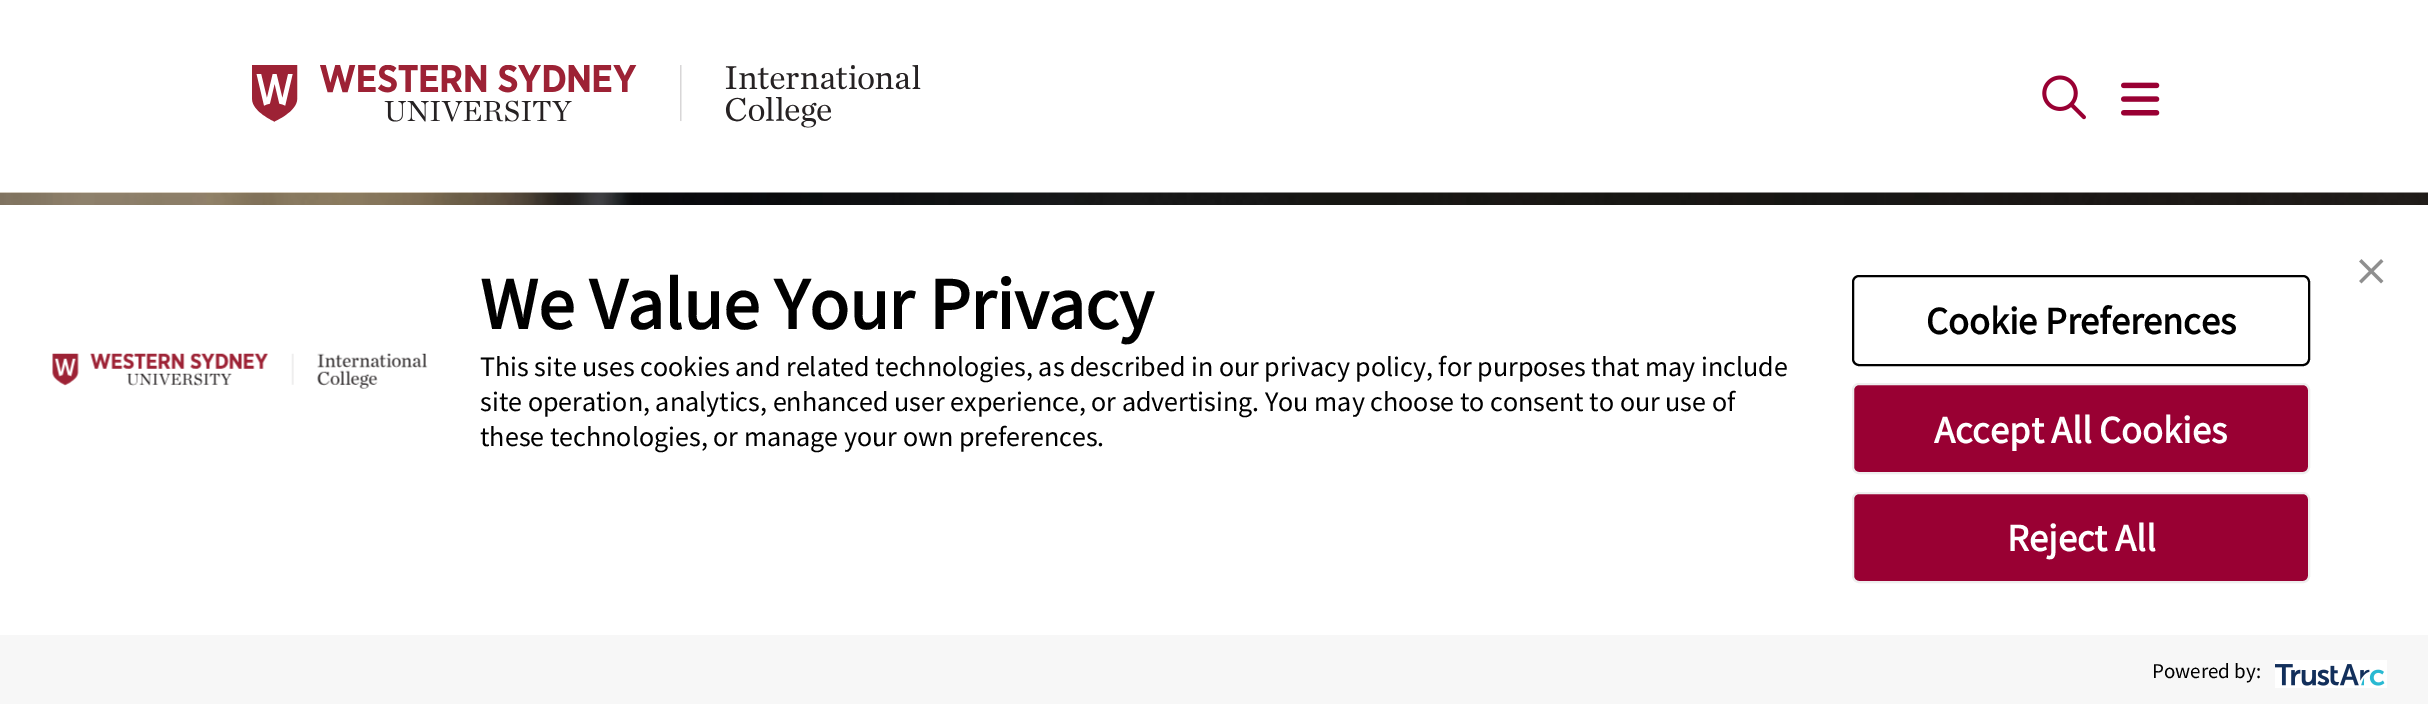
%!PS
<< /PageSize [2428 704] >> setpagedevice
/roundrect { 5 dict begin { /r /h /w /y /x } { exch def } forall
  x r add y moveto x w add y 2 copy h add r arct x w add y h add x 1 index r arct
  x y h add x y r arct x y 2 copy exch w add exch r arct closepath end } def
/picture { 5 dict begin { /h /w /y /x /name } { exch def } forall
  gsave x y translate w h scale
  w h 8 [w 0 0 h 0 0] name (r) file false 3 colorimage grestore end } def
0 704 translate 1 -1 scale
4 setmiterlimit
1 setgray
0 0 2428 704 rectfill
(img1.rgb) 252 65 669 63 picture
(img2.rgb) 2121 82 39 34 picture
(img3.rgb) 2042 75 44 45 picture
(img4.rgb) 0 192 2428 13 picture
(img5.rgb) 2359 259 25 25 picture
(img6.rgb) 52 353 376 36 picture
/SourceSansPro-Bold [73.5 0 0 -73.5 0 0] selectfont
0 setgray
480 329 moveto (We Value Your Privacy) show
/SourceSansPro-Regular [28 0 0 -28 0 0] selectfont
480 376 moveto (This site uses cookies and related technologies, as described in our privacy policy, for purposes that may include) show
480 411 moveto (site operation, analytics, enhanced user experience, or advertising. You may choose to consent to our use of) show
480 446 moveto (these technologies, or manage your own preferences.) show
2 setlinewidth
1853 276 456 89 6 roundrect stroke
/SourceSansPro-Bold [38.5 0 0 -38.5 0 0] selectfont
1926 334 moveto (Cookie Preferences) show
0.6 0 0.2 setrgbcolor
1853 384 456 89 6 roundrect gsave fill grestore
0.933 setgray
stroke
1 setgray
1934 443 moveto (Accept All Cookies) show
0.6 0 0.2 setrgbcolor
1853 493 456 89 6 roundrect gsave fill grestore
0.933 setgray
stroke
1 setgray
2007 551 moveto (Reject All) show
0.969 setgray
0 635 2428 69 rectfill
/SourceSansPro-Regular [21 0 0 -21 0 0] selectfont
0 setgray
2152 678 moveto (Powered by:) show
(img7.rgb) 2275 660 112 28 picture
showpage
